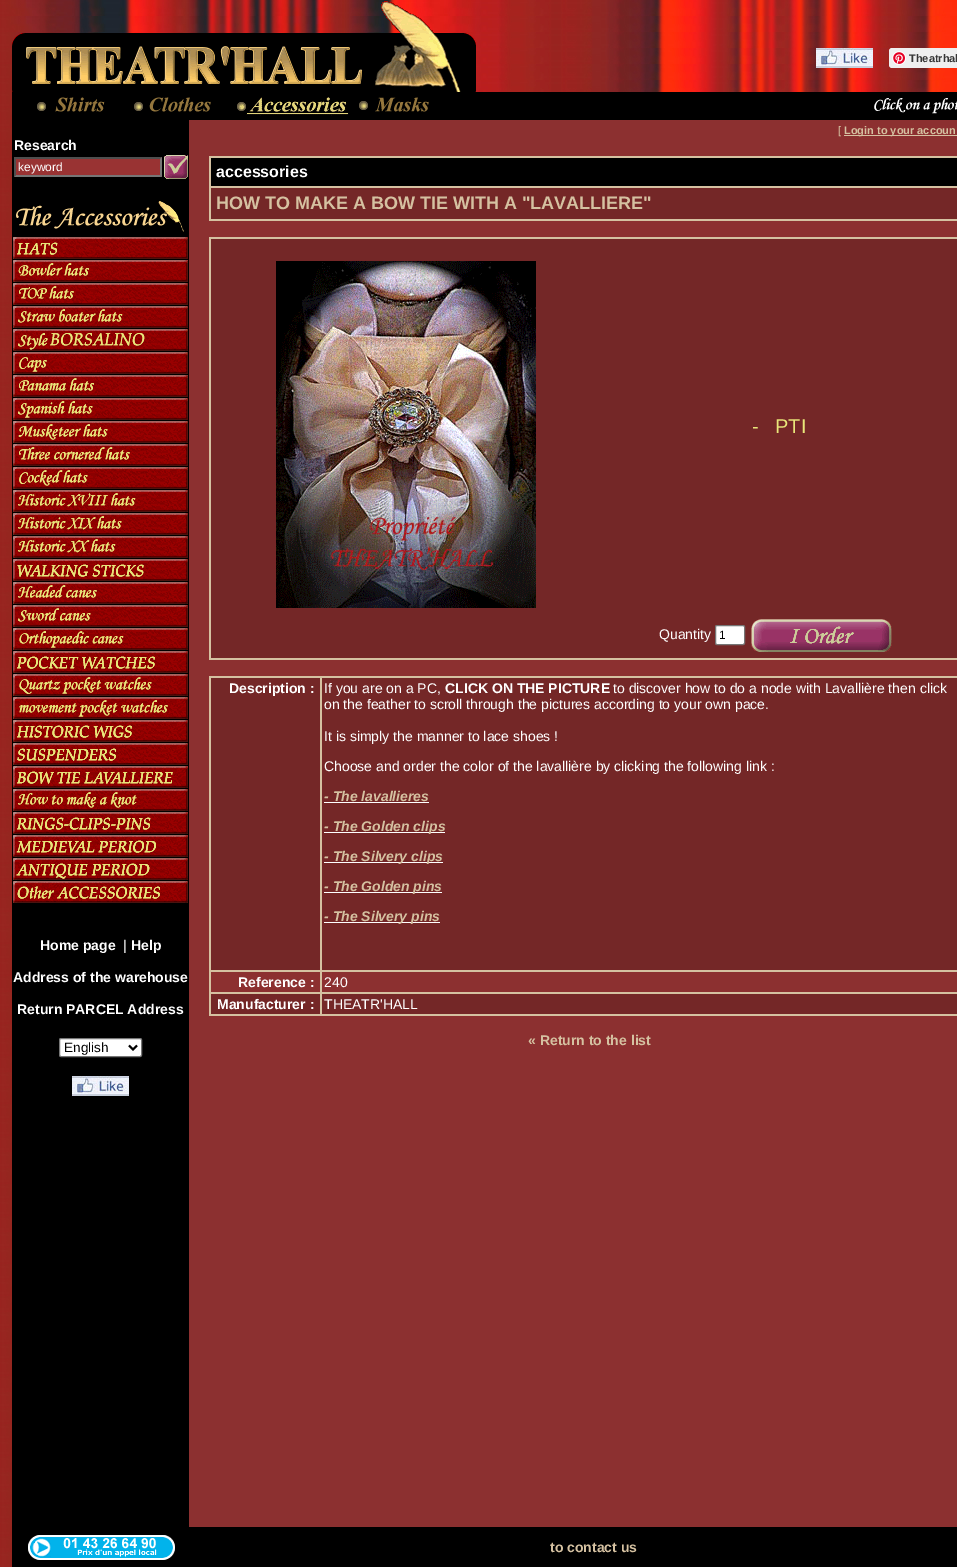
%!PS
<< /PageSize [957 1567] >> setpagedevice
/roundrect { 5 dict begin { /r /h /w /y /x } { exch def } forall
  x r add y moveto x w add y 2 copy h add r arct x w add y h add x 1 index r arct
  x y h add x y r arct x y 2 copy exch w add exch r arct closepath end } def
/picture { 5 dict begin { /h /w /y /x /name } { exch def } forall
  gsave x y translate w h scale
  w h 8 [w 0 0 h 0 0] name (r) file false 3 colorimage grestore end } def
0 1567 translate 1 -1 scale
4 setmiterlimit
1 setgray
0 0 957 1567 rectfill
(img1.rgb) 0 0 957 1567 picture
(img2.rgb) 12 1 464 91 picture
(img3.rgb) 816 48 57 20 picture
0.937 setgray
889 48 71 20 3 roundrect fill
(img4.rgb) 892 51 14 14 picture
/LiberationSans-Bold [11 0 0 -11 0 0] selectfont
0.212 setgray
909 62 moveto (Theatrhal) show
0 setgray
12 92 945 28 rectfill
(img5.rgb) 0 92 12 28 picture
(img6.rgb) 37 97 68 15 picture
(img7.rgb) 134 97 77 15 picture
(img8.rgb) 237 97 112 19 picture
(img9.rgb) 359 97 70 15 picture
(img10.rgb) 874 98 83 16 picture
0.549 0.188 0.188 setrgbcolor
189 120 768 1407 rectfill
0 setgray
12 120 177 1447 rectfill
/LiberationSans-Bold [14 0 0 -14 0 0] selectfont
1 setgray
14 150 moveto (Research) show
0.6 0.2 0.2 setrgbcolor
14 157 148 20 rectfill
0.31 setgray
newpath 14 157 moveto 162 157 lineto 160 159 lineto 16 159 lineto closepath fill
0.463 setgray
newpath 162 157 moveto 162 177 lineto 160 175 lineto 160 159 lineto closepath fill
newpath 162 177 moveto 14 177 lineto 16 175 lineto 160 175 lineto closepath fill
0.31 setgray
newpath 14 177 moveto 14 157 lineto 16 159 lineto 16 175 lineto closepath fill
/LiberationSans-Regular [12 0 0 -12 0 0] selectfont
1 setgray
18 171 moveto (keyword) show
(img11.rgb) 164 155 24 24 picture
(img12.rgb) 16 201 168 31 picture
(img13.rgb) 13 237 175 22 picture
(img14.rgb) 13 260 175 22 picture
(img15.rgb) 13 283 175 22 picture
(img16.rgb) 13 306 175 22 picture
(img17.rgb) 13 329 175 22 picture
(img18.rgb) 13 352 175 22 picture
(img19.rgb) 13 375 175 22 picture
(img20.rgb) 13 398 175 22 picture
(img21.rgb) 13 421 175 22 picture
(img22.rgb) 13 444 175 22 picture
(img23.rgb) 13 467 175 22 picture
(img24.rgb) 13 490 175 22 picture
(img25.rgb) 13 513 175 22 picture
(img26.rgb) 13 536 175 22 picture
(img27.rgb) 13 559 175 22 picture
(img28.rgb) 13 582 175 22 picture
(img29.rgb) 13 605 175 22 picture
(img30.rgb) 13 628 175 22 picture
(img31.rgb) 13 651 175 22 picture
(img32.rgb) 13 674 175 22 picture
(img33.rgb) 13 697 175 22 picture
(img34.rgb) 13 720 175 22 picture
(img35.rgb) 13 743 175 22 picture
(img36.rgb) 13 766 175 22 picture
(img37.rgb) 13 789 175 22 picture
(img38.rgb) 13 812 175 22 picture
(img39.rgb) 13 835 175 22 picture
(img40.rgb) 13 858 175 22 picture
(img41.rgb) 13 881 175 22 picture
/LiberationSans-Bold [14 0 0 -14 0 0] selectfont
40 950 moveto (Home page) show
/LiberationSans-Regular [14 0 0 -14 0 0] selectfont
123 950 moveto (|) show
/LiberationSans-Bold [14 0 0 -14 0 0] selectfont
131 950 moveto (Help) show
13 982 moveto (Address of the warehouse) show
17 1014 moveto (Return PARCEL Address) show
59.5 1038.5 82 18 1.5 roundrect gsave fill grestore
0.463 setgray
stroke
0 setgray
2 setlinewidth
newpath 129 1045.5 moveto 133 1049.5 lineto 137 1045.5 lineto stroke
/LiberationSans-Regular [13.5 0 0 -13.5 0 0] selectfont
64 1052 moveto (English) show
(img3.rgb) 72 1076 57 20 picture
/LiberationSans-Regular [11 0 0 -11 0 0] selectfont
0.835 0.757 0.631 setrgbcolor
838 134 moveto ([) show
844 135 113 1 rectfill
/LiberationSans-Bold [11 0 0 -11 0 0] selectfont
844 134 moveto (Login to your accoun) show
209 156 748 65 rectfill
0 setgray
211 158 746 28 rectfill
/LiberationSans-Bold [16 0 0 -16 0 0] selectfont
1 setgray
216 177 moveto (accessories) show
0.455 0.153 0.153 setrgbcolor
211 188 746 31 rectfill
/LiberationSans-Bold [18 0 0 -18 0 0] selectfont
0.835 0.757 0.631 setrgbcolor
216 209 moveto (HOW TO MAKE A BOW TIE WITH A "LAVALLIERE") show
209 237 748 423 rectfill
0.455 0.153 0.153 setrgbcolor
211 239 746 419 rectfill
(img42.rgb) 276 261 260 347 picture
/LiberationSans-Regular [20 0 0 -20 0 0] selectfont
0.914 0.902 0.478 setrgbcolor
752 433 moveto (-) show
775 433 moveto (PTI) show
/LiberationSans-Regular [14 0 0 -14 0 0] selectfont
1 setgray
659 639 moveto (Quantity) show
715.5 625.5 29 19 1.5 roundrect gsave fill grestore
0.463 setgray
1 setlinewidth
stroke
/LiberationSans-Regular [12 0 0 -12 0 0] selectfont
0 setgray
719 639 moveto (1) show
(img43.rgb) 751 619 141 33 picture
0.835 0.757 0.631 setrgbcolor
209 676 748 340 rectfill
0.455 0.153 0.153 setrgbcolor
211 678 109 292 rectfill
/LiberationSans-Bold [14 0 0 -14 0 0] selectfont
1 setgray
229 693 moveto (Description :) show
0.455 0.153 0.153 setrgbcolor
322 678 635 292 rectfill
/LiberationSans-Regular [14 0 0 -14 0 0] selectfont
1 setgray
324 693 moveto (If you are on a PC,) show
/LiberationSans-Bold [14 0 0 -14 0 0] selectfont
445 693 moveto (CLICK ON THE PICTURE) show
/LiberationSans-Regular [14 0 0 -14 0 0] selectfont
613 693 moveto (to discover how to do a node with Lavallière then click) show
324 709 moveto (on the feather to scroll through the pictures according to your own pace.) show
324 741 moveto (It is simply the manner to lace shoes !) show
324 771 moveto (Choose and order the color of the lavallière by clicking the following link :) show
/LiberationSans-BoldItalic [14 0 0 -14 0 0] selectfont
0.835 0.757 0.631 setrgbcolor
324 801 moveto (- The lavallieres) show
1 setgray
324 802 105 1 rectfill
324 832 121 1 rectfill
0.835 0.757 0.631 setrgbcolor
324 831 moveto (- The Golden clips) show
1 setgray
324 862 119 1 rectfill
0.835 0.757 0.631 setrgbcolor
324 861 moveto (- The Silvery clips) show
1 setgray
324 892 118 1 rectfill
0.835 0.757 0.631 setrgbcolor
324 891 moveto (- The Golden pins) show
1 setgray
324 922 116 1 rectfill
0.835 0.757 0.631 setrgbcolor
324 921 moveto (- The Silvery pins) show
0.549 0.188 0.188 setrgbcolor
211 972 109 20 rectfill
/LiberationSans-Bold [14 0 0 -14 0 0] selectfont
1 setgray
238 987 moveto (Reference :) show
0.549 0.188 0.188 setrgbcolor
322 972 635 20 rectfill
/LiberationSans-Regular [14 0 0 -14 0 0] selectfont
1 setgray
324 987 moveto (240) show
0.455 0.153 0.153 setrgbcolor
211 994 109 20 rectfill
/LiberationSans-Bold [14 0 0 -14 0 0] selectfont
1 setgray
217 1009 moveto (Manufacturer :) show
0.455 0.153 0.153 setrgbcolor
322 994 635 20 rectfill
/LiberationSans-Regular [14 0 0 -14 0 0] selectfont
1 setgray
324 1009 moveto (THEATR'HALL) show
/LiberationSans-Bold [14 0 0 -14 0 0] selectfont
0.835 0.757 0.631 setrgbcolor
528 1045 moveto (« Return to the list) show
(img44.rgb) 28 1535 147 25 picture
0 setgray
189 1527 768 40 rectfill
0.835 0.757 0.631 setrgbcolor
550 1552 moveto (to contact us) show
showpage
